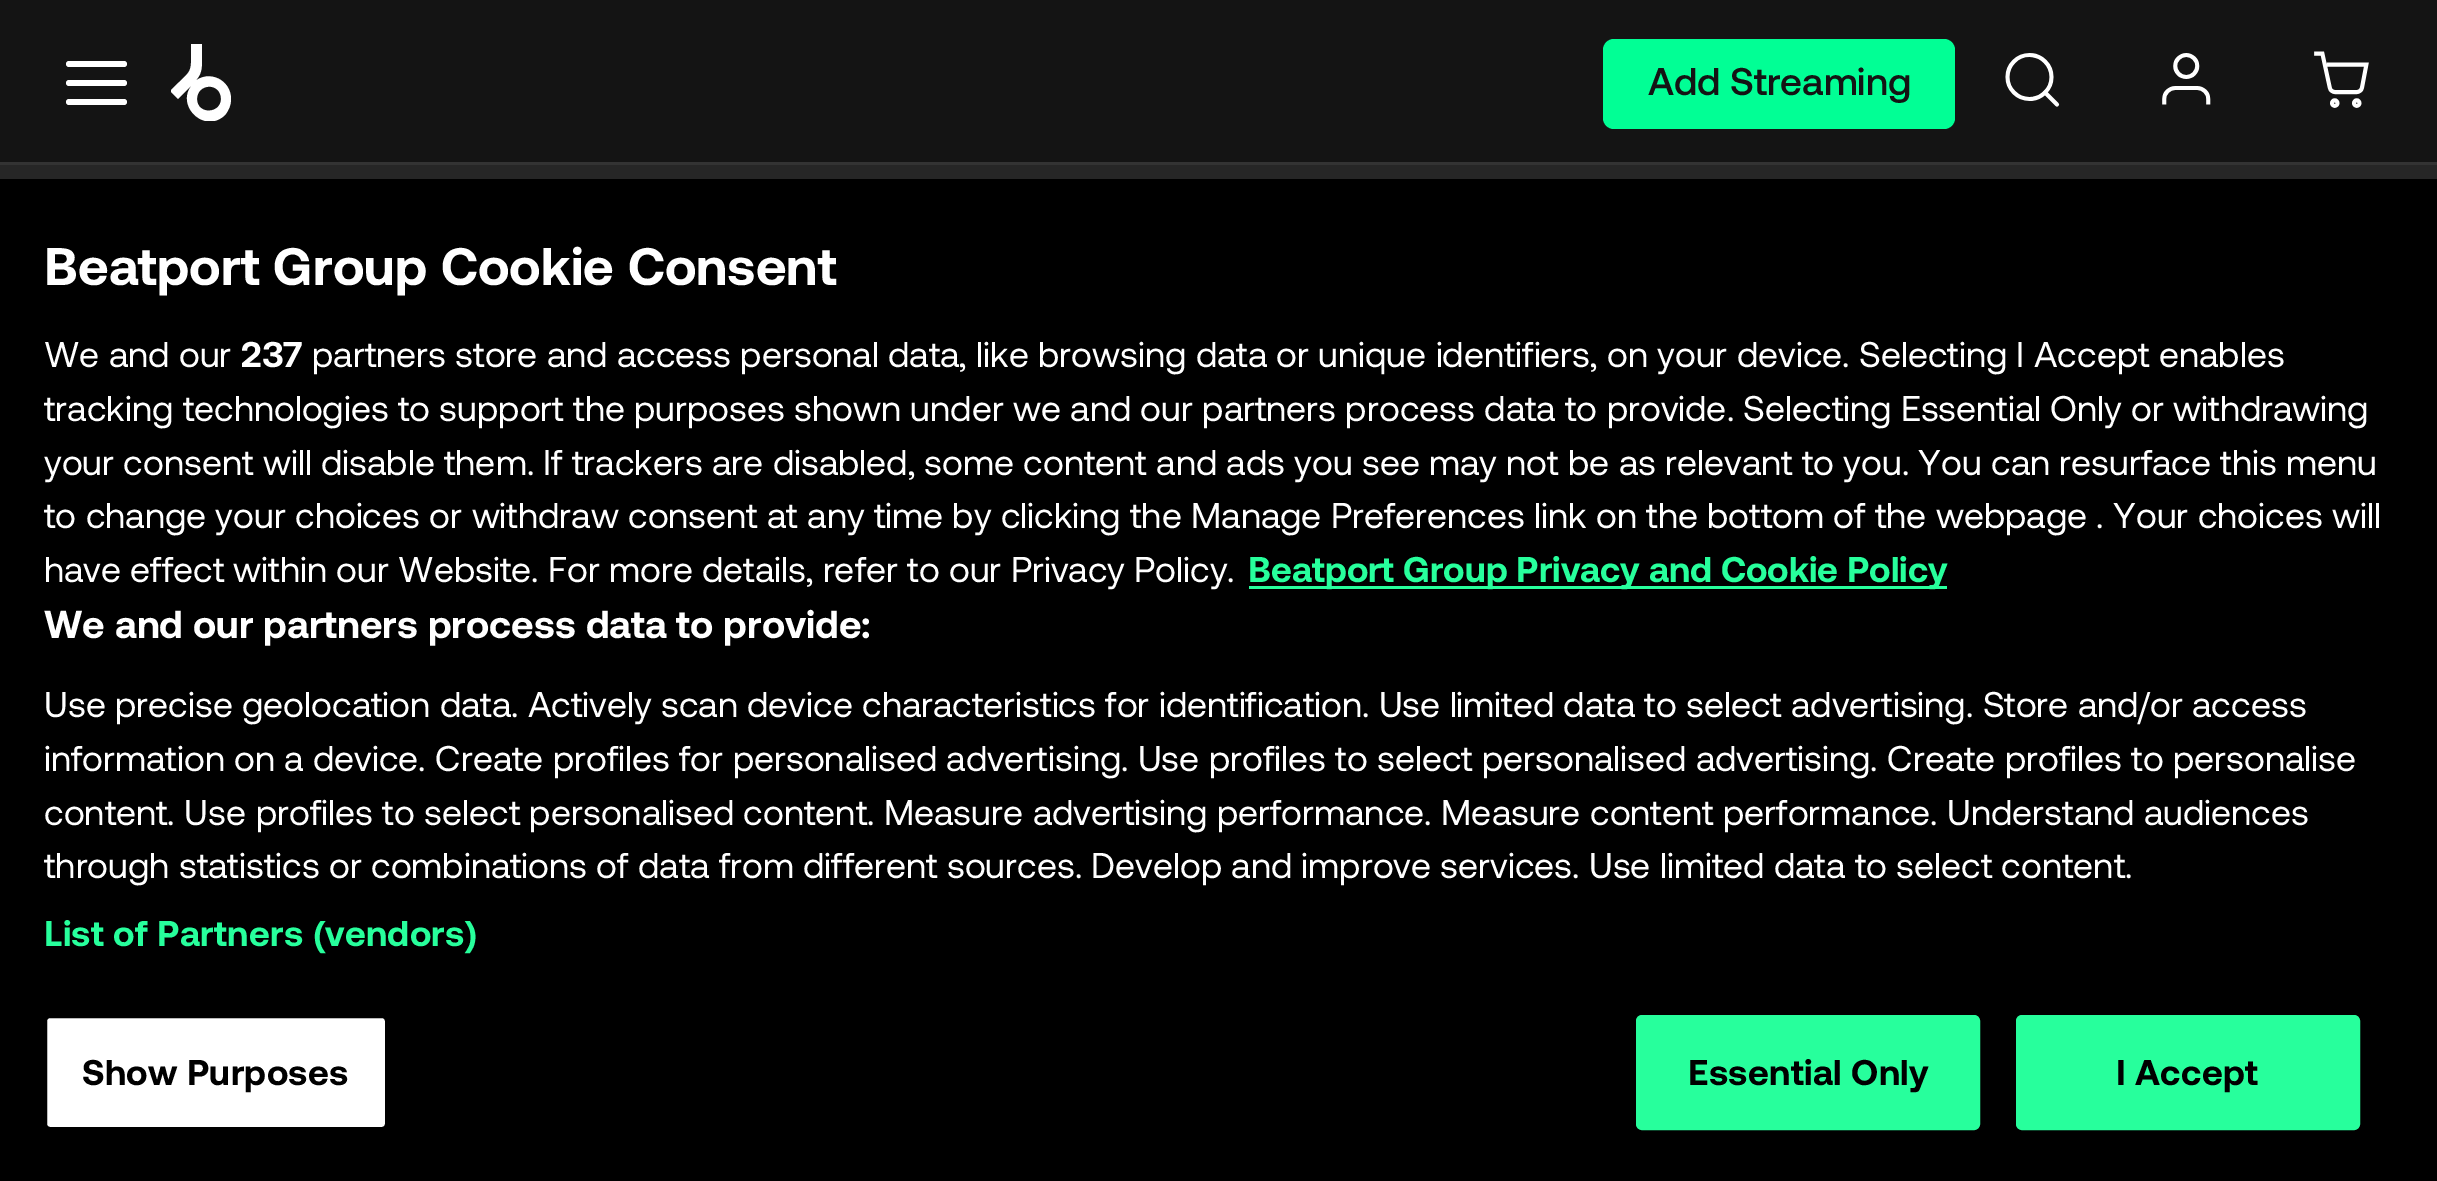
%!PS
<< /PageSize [2437 1181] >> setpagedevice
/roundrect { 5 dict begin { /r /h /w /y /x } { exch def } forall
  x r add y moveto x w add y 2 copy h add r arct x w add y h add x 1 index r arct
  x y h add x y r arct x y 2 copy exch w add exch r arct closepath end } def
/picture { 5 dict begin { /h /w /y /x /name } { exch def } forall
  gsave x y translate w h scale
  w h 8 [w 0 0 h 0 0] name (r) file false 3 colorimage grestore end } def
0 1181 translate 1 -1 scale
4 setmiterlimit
0.149 setgray
0 0 2437 1181 rectfill
0.078 setgray
0 0 2437 162 rectfill
0.2 setgray
0 162 2437 3 rectfill
1 setgray
66 80 61 6 3 roundrect fill
66 61 61 6 3 roundrect fill
66 99 61 6 3 roundrect fill
gsave
171 44 60 77 rectclip
newpath 231 99 moveto 231 105 229 110 225 115 curveto 204 135 174 104 193 84 curveto 178 99 lineto 170 91 lineto 194 67 191 76 191 44 curveto 202 44 lineto 202 58 lineto 202 68 202 75 194 82 curveto 209 69 231 80 231 99 curveto closepath 221 99 moveto 221 82 197 83 197 99 curveto 197 115 221 114 221 99 curveto closepath fill
grestore
0.004 1 0.584 setrgbcolor
1603 39 352 90 11 roundrect fill
/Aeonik-Medium [38.5 0 0 -38.5 0 0] selectfont
0.078 setgray
1648 95 moveto (Add Streaming) show
(img1.rgb) 2005 53 55 54 picture
(img2.rgb) 2162 53 49 52 picture
(img3.rgb) 2314 51 55 57 picture
0 setgray
0 179 2437 1002 rectfill
/Aeonik-Bold [52.75 0 0 -52.75 0 0] selectfont
1 setgray
44 285 moveto 0.5 0 32 (Beatport Group Cookie Consent) widthshow
/Aeonik-Regular [35.77 0 0 -35.77 0 0] selectfont
44 367 moveto (We and our) show
/Aeonik-Bold [35.77 0 0 -35.77 0 0] selectfont
241 367 moveto (237) show
/Aeonik-Regular [35.77 0 0 -35.77 0 0] selectfont
312 367 moveto (partners store and access personal data, like browsing data or unique identifiers, on your device. Selecting I Accept enables) show
44 421 moveto (tracking technologies to support the purposes shown under we and our partners process data to provide. Selecting Essential Only or withdrawing) show
44 475 moveto (your consent will disable them. If trackers are disabled, some content and ads you see may not be as relevant to you. You can resurface this menu) show
44 528 moveto (to change your choices or withdraw consent at any time by clicking the Manage Preferences link on the bottom of the webpage . Your choices will) show
44 582 moveto (have effect within our Website. For more details, refer to our Privacy Policy.) show
0.153 1 0.612 setrgbcolor
1249 586 698 3 rectfill
/Aeonik-Bold [35.77 0 0 -35.77 0 0] selectfont
1248 582 moveto (Beatport Group Privacy and Cookie Policy) show
/Aeonik-Bold [38.75 0 0 -38.75 0 0] selectfont
1 setgray
44 638 moveto 0.25 0 32 (We and our partners process data to provide:) widthshow
/Aeonik-Regular [35.77 0 0 -35.77 0 0] selectfont
44 717 moveto (Use precise geolocation data. Actively scan device characteristics for identification. Use limited data to select advertising. Store and/or access) show
44 771 moveto (information on a device. Create profiles for personalised advertising. Use profiles to select personalised advertising. Create profiles to personalise) show
44 825 moveto 0.2 0 32 (content. Use profiles to select personalised content. Measure advertising performance. Measure content performance. Understand audiences) widthshow
44 878 moveto (through statistics or combinations of data from different sources. Develop and improve services. Use limited data to select content.) show
/Aeonik-Bold [35.77 0 0 -35.77 0 0] selectfont
0.153 1 0.612 setrgbcolor
44 946 moveto 0.35 0 (List of Partners \(vendors\)) ashow
1 setgray
45.5 1016.5 341 112 4.5 roundrect gsave fill grestore
0 setgray
3 setlinewidth
stroke
82 1085 moveto 0.35 0 (Show Purposes) ashow
0.153 1 0.612 setrgbcolor
1637.5 1016.5 341 112 4.5 roundrect gsave fill grestore
stroke
0 setgray
1688 1085 moveto 0.35 0 (Essential Only) ashow
0.153 1 0.612 setrgbcolor
2017.5 1016.5 341 112 4.5 roundrect gsave fill grestore
stroke
0 setgray
2116 1085 moveto 0.35 0 (I Accept) ashow
showpage
